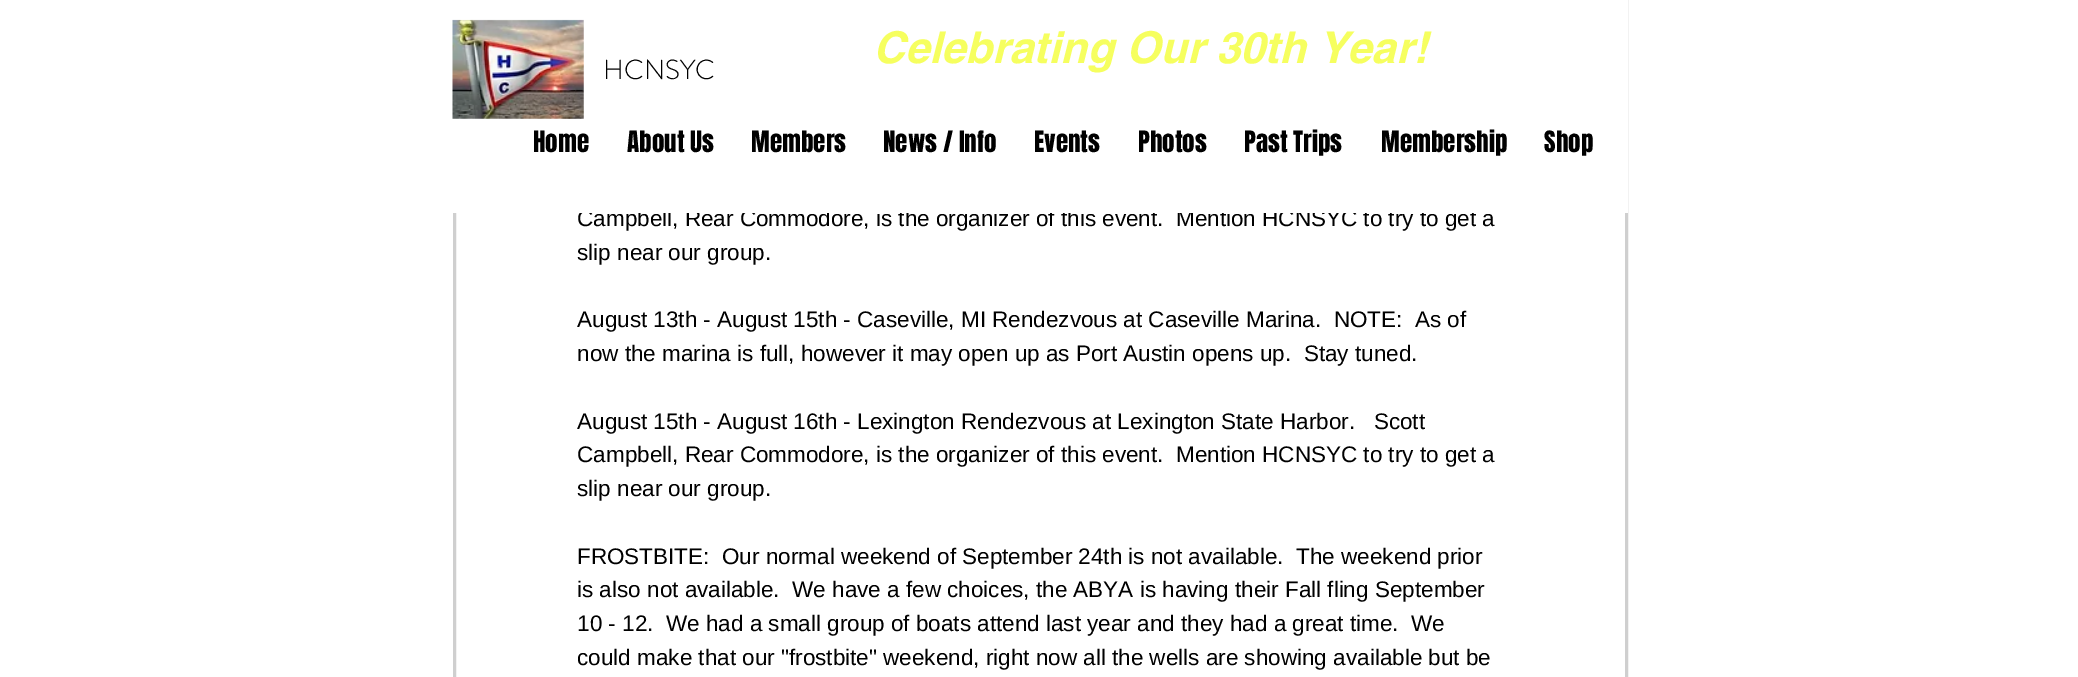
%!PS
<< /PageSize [2078 677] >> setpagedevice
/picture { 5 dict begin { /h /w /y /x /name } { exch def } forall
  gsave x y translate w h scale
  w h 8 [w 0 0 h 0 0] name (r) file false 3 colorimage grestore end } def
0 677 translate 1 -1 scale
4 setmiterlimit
1 setgray
0 0 2078 677 rectfill
0.812 setgray
3 setlinewidth
454.5 -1.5 1172 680 rectstroke
/LiberationSans-Regular [22.5 0 0 -22.5 0 0] selectfont
0 setgray
577 226 moveto (Campbell, Rear Commodore, is the organizer of this event.  Mention HCNSYC to try to get a) show
1 setgray
453 0 1175 213 rectfill
/helvetica-BoldItalic [43.75 0 0 -43.75 0 0] selectfont
0.965 1 0.373 setrgbcolor
873 63 moveto (Celebrating Our 30th Year!) show
/Anton-Regular [25 0 0 -25 0 0] selectfont
0 setgray
533 152 moveto (Home) show
627 152 moveto (About Us) show
751 152 moveto (Members) show
883 152 moveto (News / Info) show
1034 152 moveto (Events) show
1138 152 moveto (Photos) show
1244 152 moveto (Past Trips) show
1381 152 moveto (Membership) show
1544 152 moveto (Shop) show
(img1.rgb) 452 19 132 100 picture
/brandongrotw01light-Light [27.5 0 0 -27.5 0 0] selectfont
603 79 moveto (HCNSYC) show
/LiberationSans-Regular [22.5 0 0 -22.5 0 0] selectfont
577 260 moveto (slip near our group.) show
577 327 moveto (August 13th - August 15th - Caseville, MI Rendezvous at Caseville Marina.  NOTE:  As of) show
577 361 moveto (now the marina is full, however it may open up as Port Austin opens up.  Stay tuned.) show
577 429 moveto (August 15th - August 16th - Lexington Rendezvous at Lexington State Harbor.   Scott) show
577 462 moveto (Campbell, Rear Commodore, is the organizer of this event.  Mention HCNSYC to try to get a) show
577 496 moveto (slip near our group.) show
577 564 moveto (FROSTBITE:  Our normal weekend of September 24th is not available.  The weekend prior) show
577 597 moveto (is also not available.  We have a few choices, the ABYA is having their Fall fling September) show
577 631 moveto (10 - 12.  We had a small group of boats attend last year and they had a great time.  We) show
577 665 moveto (could make that our "frostbite" weekend, right now all the wells are showing available but be) show
showpage
